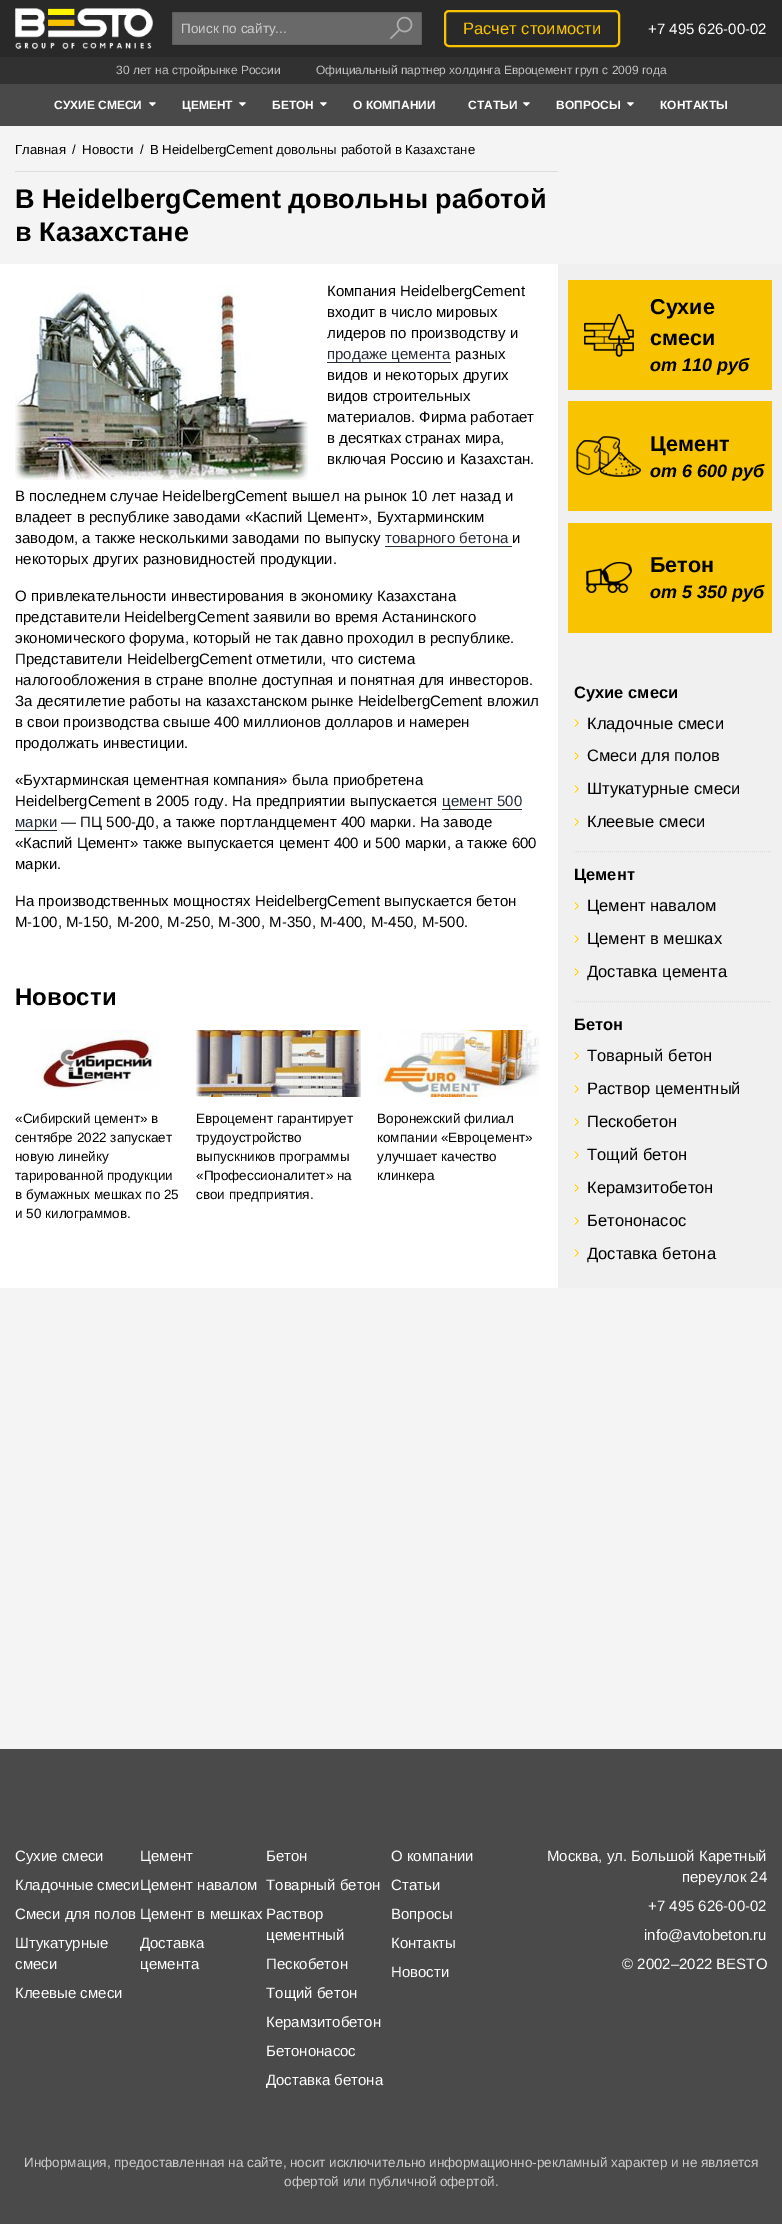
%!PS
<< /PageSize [782 2224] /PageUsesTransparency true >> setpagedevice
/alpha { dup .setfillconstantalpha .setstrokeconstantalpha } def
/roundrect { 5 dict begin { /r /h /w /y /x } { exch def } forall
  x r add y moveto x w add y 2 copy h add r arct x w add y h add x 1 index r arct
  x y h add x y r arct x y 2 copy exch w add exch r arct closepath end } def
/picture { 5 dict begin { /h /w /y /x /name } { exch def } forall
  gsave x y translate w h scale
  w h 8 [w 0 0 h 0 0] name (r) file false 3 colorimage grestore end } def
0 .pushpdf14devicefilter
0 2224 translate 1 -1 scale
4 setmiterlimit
0.957 setgray
0 0 782 2224 rectfill
0.161 setgray
0 0 782 57 rectfill
(img1.rgb) 15 8 138 41 picture
0.412 setgray
172 12 250 33 1.5 roundrect fill
0.1 alpha
0 setgray
172.5 12.5 249 32 rectstroke
/LiberationSans-Regular [13.5 0 0 -13.5 0 0] selectfont
1 alpha
0.8 setgray
181 33 moveto (Поиск по сайту...) show
(img2.rgb) 390 16 23 23 picture
0.973 0.765 0 setrgbcolor
2 setlinewidth
445 11 174 35 4 roundrect stroke
/LiberationSans-Regular [16.5 0 0 -16.5 0 0] selectfont
463 34 moveto (Расчет стоимости) show
/LiberationSans-Regular [15 0 0 -15 0 0] selectfont
1 setgray
648 34 moveto (+7 495 626-00-02) show
0.192 setgray
0 57 782 27 rectfill
/LiberationSans-Regular [12 0 0 -12 0 0] selectfont
0.757 setgray
116 74 moveto (30 лет на стройрынке России) show
316 74 moveto (Официальный партнер холдинга Евроцемент груп с 2009 года) show
0.286 setgray
0 84 782 42 rectfill
/LiberationSans-Bold [12 0 0 -12 0 0] selectfont
1 setgray
54 109 moveto (СУХИЕ СМЕСИ) show
(img3.rgb) 149 102 7 5 picture
182 109 moveto (ЦЕМЕНТ) show
(img3.rgb) 239 102 7 5 picture
272 109 moveto (БЕТОН) show
(img3.rgb) 320 102 7 5 picture
353 109 moveto (О КОМПАНИИ) show
468 109 moveto (СТАТЬИ) show
(img3.rgb) 523 102 7 5 picture
556 109 moveto (ВОПРОСЫ) show
(img3.rgb) 627 102 7 5 picture
660 109 moveto (КОНТАКТЫ) show
/LiberationSans-Regular [13.2 0 0 -13.2 0 0] selectfont
0 setgray
15 154 moveto (Главная) show
72 154 moveto (/) show
82 154 moveto (Новости) show
140 154 moveto (/) show
150 154 moveto (В HeidelbergCement довольны работой в Казахстане) show
0.863 setgray
15 171 543 1 rectfill
/LiberationSans-Bold [27 0 0 -27 0 0] selectfont
0 setgray
15 208 moveto (В HeidelbergCement довольны работой) show
15 241 moveto (в Казахстане) show
1 setgray
0 264 558 1024 rectfill
(img4.rgb) 15 285 293 195 picture
/LiberationSans-Regular [15 0 0 -15 0 0] selectfont
0 setgray
327 296 moveto (Компания HeidelbergCement) show
327 317 moveto (входит в число мировых) show
327 338 moveto (лидеров по производству и) show
0.141 0.169 0.216 setrgbcolor
327 362 124 1 rectfill
327 359 moveto (продаже цемента) show
0 setgray
455 359 moveto (разных) show
327 380 moveto (видов и некоторых других) show
327 401 moveto (видов строительных) show
327 422 moveto (материалов. Фирма работает) show
327 443 moveto (в десятках странах мира,) show
327 464 moveto (включая Россию и Казахстан.) show
15 501 moveto (В последнем случае HeidelbergCement вышел на рынок 10 лет назад и) show
15 522 moveto (владеет в республике заводами «Каспий Цемент», Бухтарминским) show
15 543 moveto (заводом, а также несколькими заводами по выпуску) show
0.141 0.169 0.216 setrgbcolor
385 546 127 1 rectfill
385 543 moveto (товарного бетона) show
0 setgray
512 543 moveto (и) show
15 564 moveto (некоторых других разновидностей продукции.) show
15 601 moveto (О привлекательности инвестирования в экономику Казахстана) show
15 622 moveto (представители HeidelbergCement заявили во время Астанинского) show
15 643 moveto (экономического форума, который не так давно проходил в республике.) show
15 664 moveto (Представители HeidelbergCement отметили, что система) show
15 685 moveto (налогообложения в стране вполне доступная и понятная для инвесторов.) show
15 706 moveto (За десятилетие работы на казахстанском рынке HeidelbergCement вложил) show
15 727 moveto (в свои производства свыше 400 миллионов долларов и намерен) show
15 748 moveto (продолжать инвестиции.) show
15 785 moveto («Бухтарминская цементная компания» была приобретена) show
15 806 moveto (HeidelbergCement в 2005 году. На предприятии выпускается) show
0.141 0.169 0.216 setrgbcolor
442 806 moveto (цемент 500) show
442 809 80 1 rectfill
15 830 42 1 rectfill
15 827 moveto (марки) show
0 setgray
61 827 moveto (— ПЦ 500-Д0, а также портландцемент 400 марки. На заводе) show
15 848 moveto («Каспий Цемент» также выпускается цемент 400 и 500 марки, а также 600) show
15 869 moveto (марки.) show
15 906 moveto (На производственных мощностях HeidelbergCement выпускается бетон) show
15 927 moveto (М-100, М-150, М-200, М-250, М-300, М-350, М-400, М-450, М-500.) show
/LiberationSans-Bold [24 0 0 -24 0 0] selectfont
15 1005 moveto (Новости) show
(img5.rgb) 39 1030 120 60 picture
/LiberationSans-Regular [13.5 0 0 -13.5 0 0] selectfont
15 1123 moveto («Сибирский цемент» в) show
15 1142 moveto (сентябре 2022 запускает) show
15 1161 moveto (новую линейку) show
15 1180 moveto (тарированной продукции) show
15 1199 moveto (в бумажных мешках по 25) show
15 1218 moveto (и 50 килограммов.) show
(img6.rgb) 196 1030 165 67 picture
196 1123 moveto (Евроцемент гарантирует) show
196 1142 moveto (трудоустройство) show
196 1161 moveto (выпускников программы) show
196 1180 moveto («Профессионалитет» на) show
196 1199 moveto (свои предприятия.) show
(img7.rgb) 377 1030 163 67 picture
377 1123 moveto (Воронежский филиал) show
377 1142 moveto (компании «Евроцемент») show
377 1161 moveto (улучшает качество) show
377 1180 moveto (клинкера) show
0.941 setgray
558 264 224 1024 rectfill
0.973 0.765 0 setrgbcolor
568 280 204 110 rectfill
(img8.rgb) 584 314 50 43 picture
/LiberationSans-Bold [21.5 0 0 -21.5 0 0] selectfont
0 setgray
650 314 moveto (Сухие) show
650 345 moveto (смеси) show
/LiberationSans-BoldItalic [18 0 0 -18 0 0] selectfont
650 371 moveto (от 110 руб) show
0.973 0.765 0 setrgbcolor
568 401 204 110 rectfill
(img9.rgb) 576 436 65 41 picture
/LiberationSans-Bold [21.5 0 0 -21.5 0 0] selectfont
0 setgray
650 451 moveto (Цемент) show
/LiberationSans-BoldItalic [18 0 0 -18 0 0] selectfont
650 477 moveto (от 6 600 руб) show
0.973 0.765 0 setrgbcolor
568 523 204 110 rectfill
(img10.rgb) 586 562 46 31 picture
/LiberationSans-Bold [21.5 0 0 -21.5 0 0] selectfont
0 setgray
650 572 moveto (Бетон) show
/LiberationSans-BoldItalic [18 0 0 -18 0 0] selectfont
650 598 moveto (от 5 350 руб) show
0.867 setgray
1 setlinewidth
[1 1] 0 setdash
newpath 574 851.5 moveto 772 851.5 lineto stroke
/LiberationSans-Bold [16.5 0 0 -16.5 0 0] selectfont
0 setgray
574 698 moveto (Сухие смеси) show
(img11.rgb) 574 719 5 8 picture
/LiberationSans-Regular [16.5 0 0 -16.5 0 0] selectfont
587 729 moveto (Кладочные смеси) show
(img11.rgb) 574 752 5 8 picture
587 761 moveto (Смеси для полов) show
(img11.rgb) 574 785 5 8 picture
587 794 moveto (Штукатурные смеси) show
(img11.rgb) 574 818 5 8 picture
587 827 moveto (Клеевые смеси) show
0.867 setgray
newpath 574 1001.5 moveto 772 1001.5 lineto stroke
/LiberationSans-Bold [16.5 0 0 -16.5 0 0] selectfont
0 setgray
574 880 moveto (Цемент) show
(img11.rgb) 574 902 5 8 picture
/LiberationSans-Regular [16.5 0 0 -16.5 0 0] selectfont
587 911 moveto (Цемент навалом) show
(img11.rgb) 574 935 5 8 picture
587 944 moveto (Цемент в мешках) show
(img11.rgb) 574 968 5 8 picture
587 977 moveto (Доставка цемента) show
/LiberationSans-Bold [16.5 0 0 -16.5 0 0] selectfont
574 1030 moveto (Бетон) show
(img11.rgb) 574 1052 5 8 picture
/LiberationSans-Regular [16.5 0 0 -16.5 0 0] selectfont
587 1061 moveto (Товарный бетон) show
(img11.rgb) 574 1085 5 8 picture
587 1094 moveto (Раствор цементный) show
(img11.rgb) 574 1118 5 8 picture
587 1127 moveto (Пескобетон) show
(img11.rgb) 574 1151 5 8 picture
587 1160 moveto (Тощий бетон) show
(img11.rgb) 574 1184 5 8 picture
587 1193 moveto (Керамзитобетон) show
(img11.rgb) 574 1217 5 8 picture
587 1226 moveto (Бетононасос) show
(img11.rgb) 574 1249 5 8 picture
587 1259 moveto (Доставка бетона) show
0.29 setgray
0 1749 782 475 rectfill
/LiberationSans-Regular [15 0 0 -15 0 0] selectfont
1 setgray
15 1861 moveto (Сухие смеси) show
15 1890 moveto (Кладочные смеси) show
15 1919 moveto (Смеси для полов) show
15 1948 moveto (Штукатурные) show
15 1969 moveto (смеси) show
15 1998 moveto (Клеевые смеси) show
140 1861 moveto (Цемент) show
140 1890 moveto (Цемент навалом) show
140 1919 moveto (Цемент в мешках) show
140 1948 moveto (Доставка) show
140 1969 moveto (цемента) show
266 1861 moveto (Бетон) show
266 1890 moveto (Товарный бетон) show
266 1919 moveto (Раствор) show
266 1940 moveto (цементный) show
266 1969 moveto (Пескобетон) show
266 1998 moveto (Тощий бетон) show
266 2027 moveto (Керамзитобетон) show
266 2056 moveto (Бетононасос) show
266 2085 moveto (Доставка бетона) show
391 1861 moveto (О компании) show
391 1890 moveto (Статьи) show
391 1919 moveto (Вопросы) show
391 1948 moveto (Контакты) show
391 1977 moveto (Новости) show
547 1861 moveto (Москва, ул. Большой Каретный) show
682 1882 moveto (переулок 24) show
648 1911 moveto (+7 495 626-00-02) show
644 1940 moveto (info@avtobeton.ru) show
622 1969 moveto (© 2002–2022 BESTO) show
/LiberationSans-Regular [13.5 0 0 -13.5 0 0] selectfont
0.8 setgray
24 2167 moveto (Информация, предоставленная на сайте, носит исключительно информационно-рекламный характер и не является) show
284 2186 moveto (офертой или публичной офертой.) show
.poppdf14devicefilter showpage
